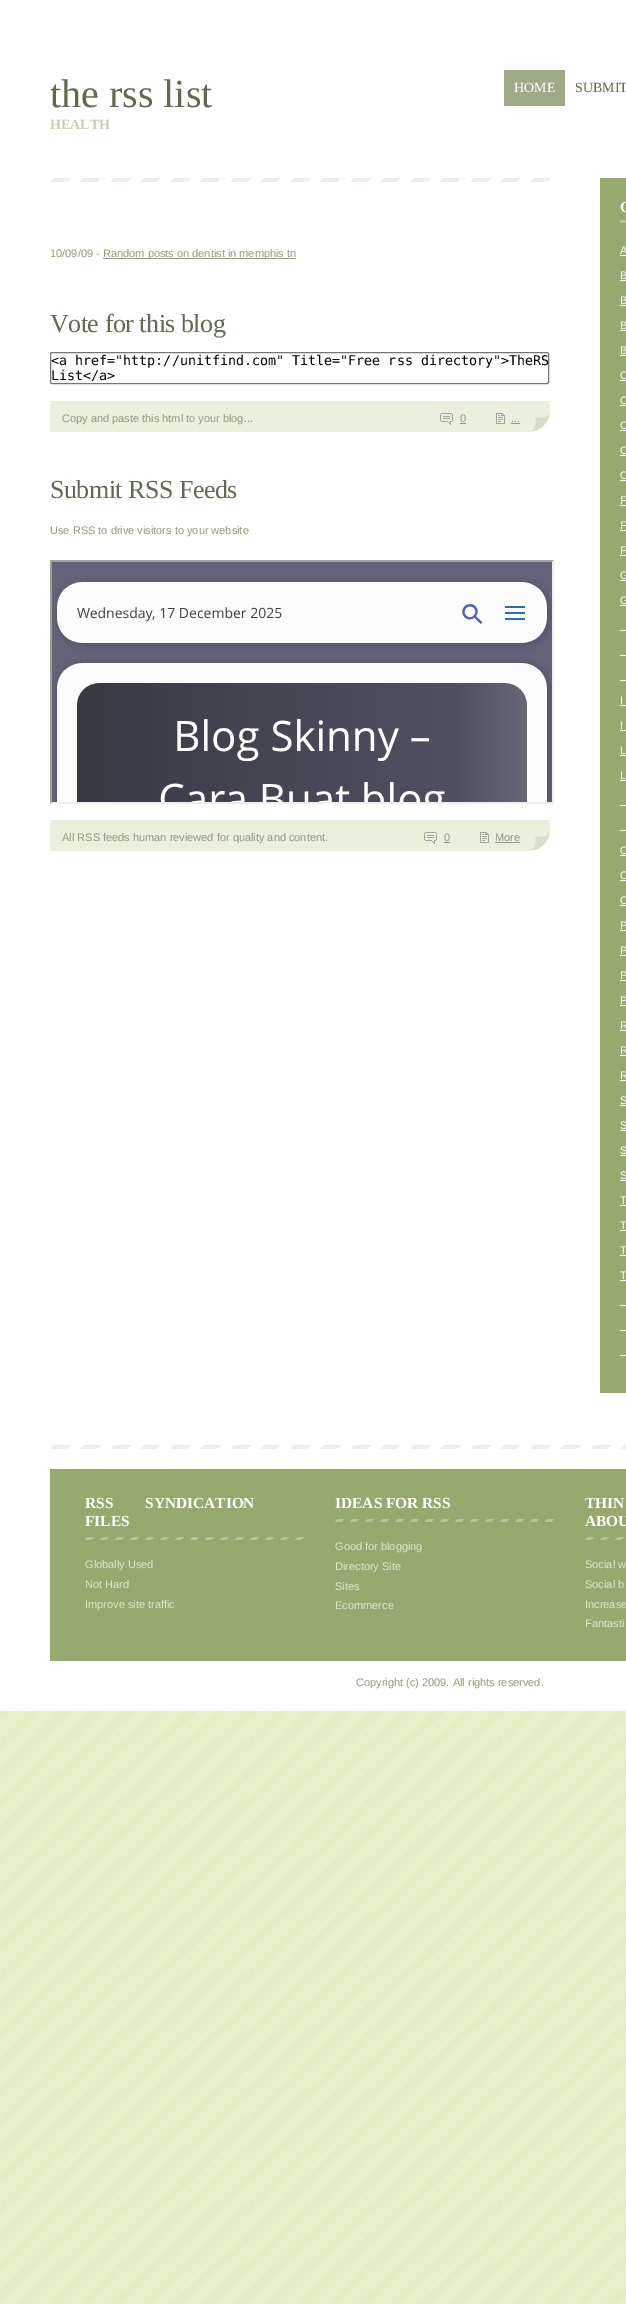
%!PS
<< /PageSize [626 2304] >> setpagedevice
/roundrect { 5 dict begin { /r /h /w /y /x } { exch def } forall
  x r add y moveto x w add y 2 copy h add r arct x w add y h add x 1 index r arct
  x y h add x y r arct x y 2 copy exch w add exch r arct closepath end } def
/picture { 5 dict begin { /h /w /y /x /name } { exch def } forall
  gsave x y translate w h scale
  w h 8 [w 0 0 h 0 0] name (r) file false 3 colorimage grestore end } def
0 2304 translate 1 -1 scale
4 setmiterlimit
1 setgray
0 0 626 2304 rectfill
(img1.rgb) 0 1711 626 593 picture
/LiberationSerif-Regular [40 0 0 -40 0 0] selectfont
0.38 0.42 0.31 setrgbcolor
50 107 moveto (the rss list) show
/LiberationSerif-Bold [14 0 0 -14 0 0] selectfont
0.776 0.816 0.702 setrgbcolor
50 129 moveto (HEALTH) show
0.624 0.671 0.529 setrgbcolor
504 70 61 36 rectfill
/LiberationSerif-Regular [14 0 0 -14 0 0] selectfont
1 setgray
514 92 moveto (HOME) show
0.38 0.42 0.31 setrgbcolor
575 92 moveto (SUBMIT) show
(img2.rgb) 50 178 500 4 picture
/LiberationSans-Regular [11 0 0 -11 0 0] selectfont
0.565 0.608 0.471 setrgbcolor
50 257 moveto (10/09/09 -) show
103 258 193 1 rectfill
103 257 moveto (Random posts on dentist in memphis tn) show
/LiberationSerif-Regular [26 0 0 -26 0 0] selectfont
0.38 0.42 0.31 setrgbcolor
50 332 moveto -0.5 0 (Vote for this blog) ashow
0.463 setgray
50.5 352.5 498 31 1.5 roundrect stroke
/DejaVuSansMono-Regular [13.35 0 0 -13.35 0 0] selectfont
0 setgray
51 365 moveto (<a href="http://unitfind.com" Title="Free rss directory">TheRS) show
51 380 moveto (List</a>) show
0.918 0.941 0.871 setrgbcolor
50 401 500 31 rectfill
(img3.rgb) 525 411 25 21 picture
/LiberationSans-Regular [11 0 0 -11 0 0] selectfont
0.565 0.608 0.471 setrgbcolor
62 422 moveto (Copy and paste this html to your blog...) show
(img4.rgb) 440 413 13 12 picture
460 422 moveto (0) show
460 423 6 1 rectfill
(img5.rgb) 496 413 9 11 picture
511 422 moveto (...) show
511 423 9 1 rectfill
/LiberationSerif-Regular [26 0 0 -26 0 0] selectfont
0.38 0.42 0.31 setrgbcolor
50 498 moveto -0.5 0 (Submit RSS Feeds) ashow
/LiberationSans-Regular [11 0 0 -11 0 0] selectfont
0.565 0.608 0.471 setrgbcolor
50 534 moveto (Use RSS to drive visitors to your website) show
0.624 setgray
newpath 50 560 moveto 554 560 lineto 552 562 lineto 52 562 lineto closepath fill
0.933 setgray
newpath 554 560 moveto 554 804 lineto 552 802 lineto 552 562 lineto closepath fill
newpath 554 804 moveto 50 804 lineto 52 802 lineto 552 802 lineto closepath fill
0.624 setgray
newpath 50 804 moveto 50 560 lineto 52 562 lineto 52 802 lineto closepath fill
(img6.rgb) 52 562 500 240 picture
0.918 0.941 0.871 setrgbcolor
50 820 500 31 rectfill
(img3.rgb) 525 830 25 21 picture
0.565 0.608 0.471 setrgbcolor
62 841 moveto (All RSS feeds human reviewed for quality and content.) show
(img4.rgb) 424 832 13 12 picture
444 841 moveto (0) show
444 842 6 1 rectfill
(img5.rgb) 480 832 9 11 picture
495 841 moveto (More) show
495 842 25 1 rectfill
0.588 0.663 0.435 setrgbcolor
600 178 26 1215 rectfill
0.714 0.765 0.604 setrgbcolor
620 220 6 3 rectfill
/LiberationSerif-Bold [15.4 0 0 -15.4 0 0] selectfont
1 setgray
620 212 moveto (C) show
/LiberationSans-Regular [11 0 0 -11 0 0] selectfont
620 254 moveto (A) show
620 255 6 1 rectfill
620 279 moveto (B) show
620 280 6 1 rectfill
620 304 moveto (B) show
620 305 6 1 rectfill
620 329 moveto (B) show
620 330 6 1 rectfill
620 354 moveto (B) show
620 355 6 1 rectfill
620 379 moveto (C) show
620 380 6 1 rectfill
620 404 moveto (C) show
620 405 6 1 rectfill
620 429 moveto (C) show
620 430 6 1 rectfill
620 454 moveto (C) show
620 455 6 1 rectfill
620 479 moveto (C) show
620 480 6 1 rectfill
620 504 moveto (F) show
620 505 6 1 rectfill
620 529 moveto (F) show
620 530 6 1 rectfill
620 554 moveto (F) show
620 555 6 1 rectfill
620 579 moveto (G) show
620 580 6 1 rectfill
620 604 moveto (G) show
620 605 6 1 rectfill
620 630 6 1 rectfill
620 655 6 1 rectfill
620 680 6 1 rectfill
620 704 moveto (I) show
620 705 6 1 rectfill
620 729 moveto (I) show
620 730 6 1 rectfill
620 754 moveto (L) show
620 755 6 1 rectfill
620 779 moveto (L) show
620 780 6 1 rectfill
620 805 6 1 rectfill
620 830 6 1 rectfill
620 854 moveto (O) show
620 855 6 1 rectfill
620 879 moveto (O) show
620 880 6 1 rectfill
620 904 moveto (O) show
620 905 6 1 rectfill
620 929 moveto (P) show
620 930 6 1 rectfill
620 954 moveto (P) show
620 955 6 1 rectfill
620 979 moveto (P) show
620 980 6 1 rectfill
620 1004 moveto (P) show
620 1005 6 1 rectfill
620 1029 moveto (R) show
620 1030 6 1 rectfill
620 1054 moveto (R) show
620 1055 6 1 rectfill
620 1079 moveto (R) show
620 1080 6 1 rectfill
620 1104 moveto (S) show
620 1105 6 1 rectfill
620 1129 moveto (S) show
620 1130 6 1 rectfill
620 1154 moveto (S) show
620 1155 6 1 rectfill
620 1179 moveto (S) show
620 1180 6 1 rectfill
620 1204 moveto (T) show
620 1205 6 1 rectfill
620 1229 moveto (T) show
620 1230 6 1 rectfill
620 1254 moveto (T) show
620 1255 6 1 rectfill
620 1279 moveto (T) show
620 1280 6 1 rectfill
620 1305 6 1 rectfill
620 1330 6 1 rectfill
620 1355 6 1 rectfill
(img7.rgb) 50 1445 576 4 picture
0.588 0.663 0.435 setrgbcolor
50 1469 576 192 rectfill
(img8.rgb) 85 1537 219 3 picture
/LiberationSerif-Bold [15.4 0 0 -15.4 0 0] selectfont
1 setgray
85 1508 moveto 28 0 32 (RSS SYNDICATION) widthshow
85 1526 moveto (FILES) show
/LiberationSans-Regular [11 0 0 -11 0 0] selectfont
0.875 0.902 0.82 setrgbcolor
85 1568 moveto (Globally Used) show
85 1588 moveto (Not Hard) show
85 1608 moveto (Improve site traffic) show
(img8.rgb) 335 1519 219 3 picture
/LiberationSerif-Bold [15.4 0 0 -15.4 0 0] selectfont
1 setgray
335 1508 moveto (IDEAS FOR RSS) show
/LiberationSans-Regular [11 0 0 -11 0 0] selectfont
0.875 0.902 0.82 setrgbcolor
335 1550 moveto (Good for blogging) show
335 1570 moveto (Directory Site) show
335 1590 moveto (Sites) show
335 1609 moveto (Ecommerce) show
(img9.rgb) 585 1537 39 3 picture
/LiberationSerif-Bold [15.4 0 0 -15.4 0 0] selectfont
1 setgray
585 1508 moveto 14 0 32 (THIN) widthshow
585 1526 moveto (ABOU) show
/LiberationSans-Regular [11 0 0 -11 0 0] selectfont
0.875 0.902 0.82 setrgbcolor
585 1568 moveto (Social w) show
585 1588 moveto (Social b) show
585 1608 moveto (Increase) show
585 1627 moveto (Fantasti) show
0.565 0.608 0.471 setrgbcolor
356 1686 moveto (Copyright \(c\) 2009. All rights reserved.) show
showpage
